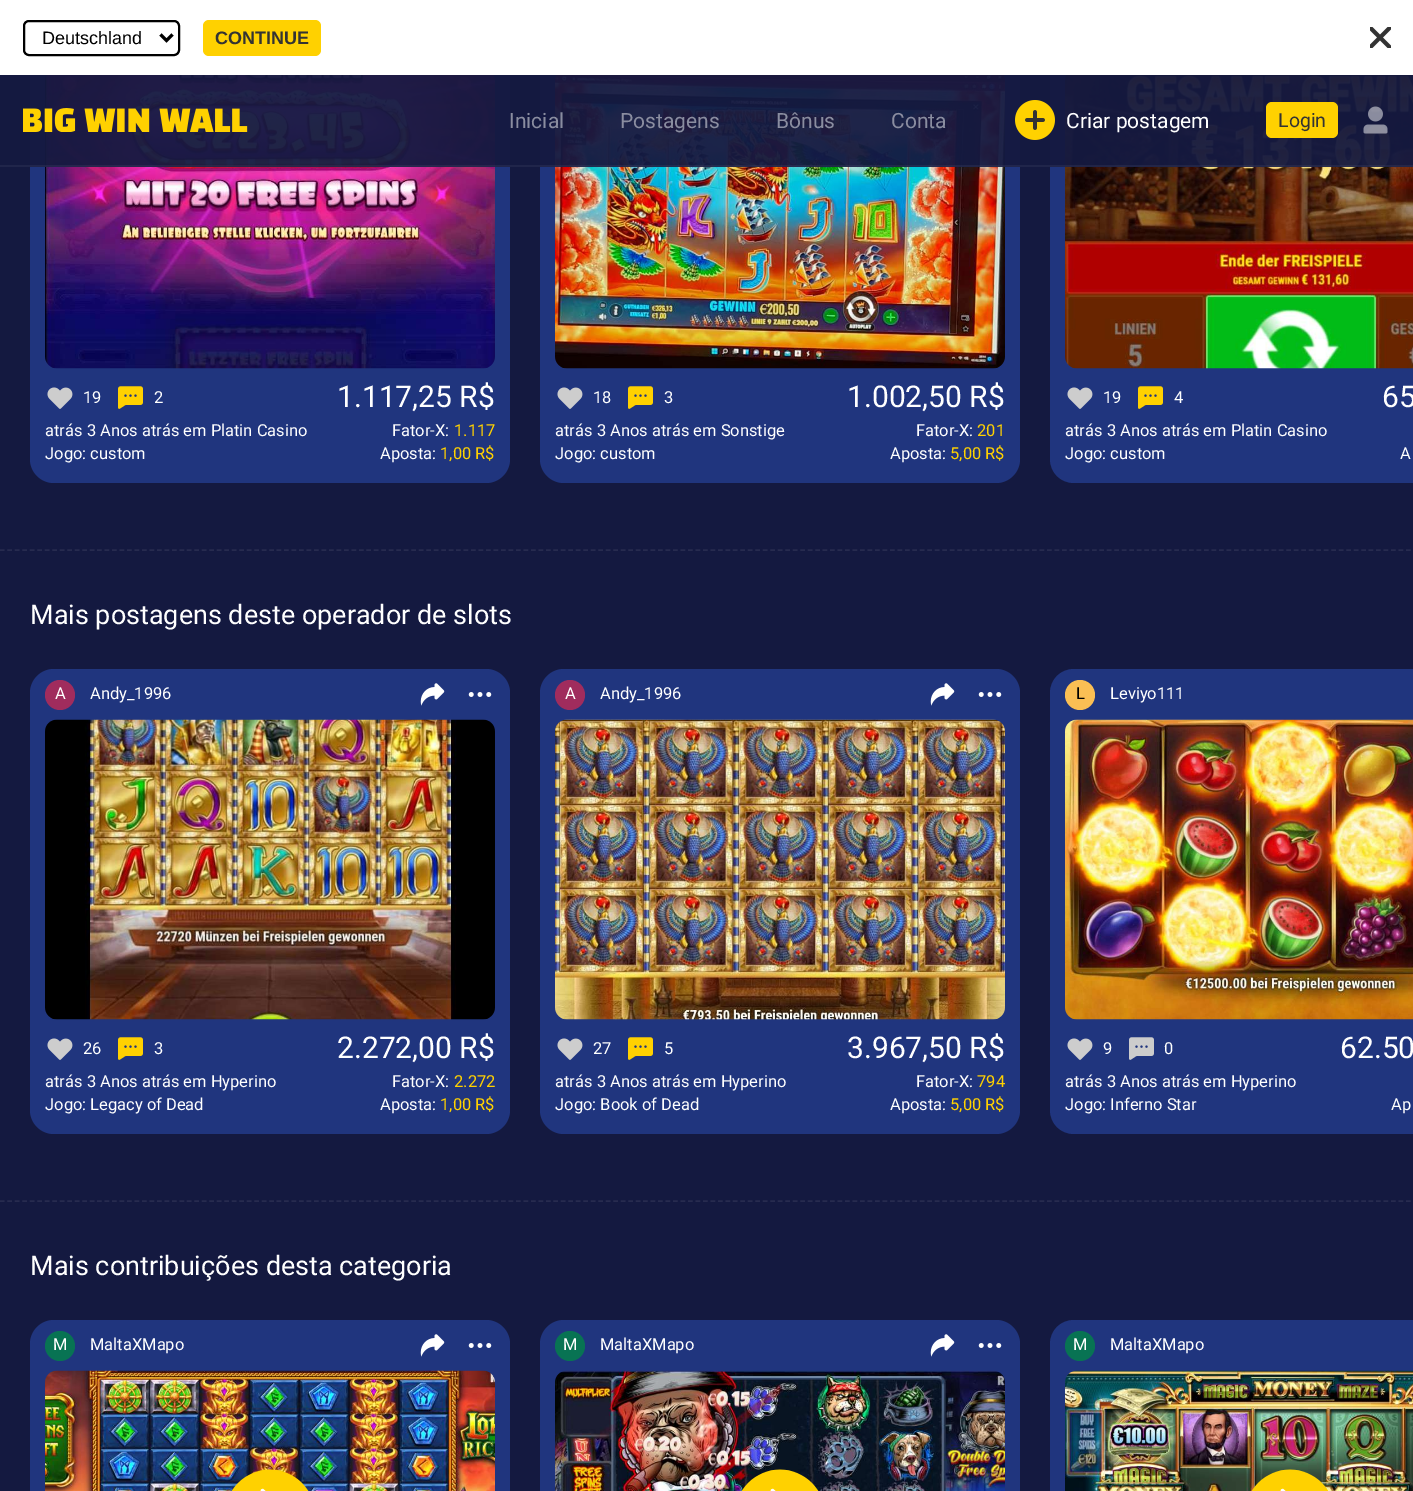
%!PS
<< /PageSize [1413 1491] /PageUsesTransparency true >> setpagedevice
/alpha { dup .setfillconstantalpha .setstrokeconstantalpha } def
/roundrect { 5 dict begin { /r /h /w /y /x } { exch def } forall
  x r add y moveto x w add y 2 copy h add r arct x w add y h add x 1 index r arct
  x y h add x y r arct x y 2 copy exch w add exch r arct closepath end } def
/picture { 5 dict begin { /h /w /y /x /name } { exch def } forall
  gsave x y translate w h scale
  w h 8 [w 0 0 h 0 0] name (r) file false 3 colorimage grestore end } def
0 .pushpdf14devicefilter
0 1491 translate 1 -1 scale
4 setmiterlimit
0.078 0.098 0.251 setrgbcolor
0 0 1413 1491 rectfill
0.125 0.208 0.494 setrgbcolor
30 18 480 465 24 roundrect fill
540 18 480 465 24 roundrect fill
newpath 1074 18 moveto 1413 18 lineto 1413 483 lineto 1074 483 lineto 1060.5 483 1050 472.5 1050 459 curveto 1050 42 lineto 1050 28.5 1060.5 18 1074 18 curveto closepath fill
1 setgray
0 0 1413 75 rectfill
0 setgray
2 setlinewidth
24 21 155 34 5 roundrect stroke
3 setlinewidth
newpath 160.5 34.5 moveto 166.5 40.5 lineto 172.5 34.5 lineto stroke
/LiberationSans-Regular [18 0 0 -18 0 0] selectfont
42 44 moveto (Deutschland) show
1 0.82 0 setrgbcolor
203 20 118 36 6 roundrect fill
/LiberationSans-Bold [18 0 0 -18 0 0] selectfont
0.2 setgray
215 44 moveto (CONTINUE) show
(img1.rgb) 1370 27 21 21 picture
(img5.rgb) 45 75 450 294 picture
(img8.rgb) 555 75 450 294 picture
(img9.rgb) 1065 75 348 294 picture
0.95 alpha
0.078 0.098 0.251 setrgbcolor
30 75 1383 92 rectfill
0.05 alpha
1 setgray
0 165 1413 2 rectfill
1 alpha
(img2.rgb) 23 108 225 24 picture
/Roboto-Regular [21 0 0 -21 0 0] selectfont
0.541 0.553 0.627 setrgbcolor
509 128 moveto (Inicial) show
620 128 moveto (Postagens) show
776 128 moveto (Bônus) show
891 128 moveto (Conta) show
(img3.rgb) 1015 100 40 40 picture
1 setgray
1066 128 moveto (Criar postagem) show
1 0.82 0 setrgbcolor
1266 102 72 36 6 roundrect fill
/Roboto-Regular [19.5 0 0 -19.5 0 0] selectfont
0.2 setgray
1278 127 moveto (Login) show
(img4.rgb) 1363 106 25 28 picture
(img6.rgb) 47 387 26 22 picture
/Roboto-Regular [16.5 0 0 -16.5 0 0] selectfont
1 setgray
83 403 moveto (19) show
(img7.rgb) 118 386 25 23 picture
154 403 moveto (2) show
/Roboto-Regular [30 0 0 -30 0 0] selectfont
337 407 moveto (1.117,25 R$) show
/Roboto-Regular [16.5 0 0 -16.5 0 0] selectfont
45 436 moveto (atrás 3 Anos atrás em Platin Casino) show
45 459 moveto (Jogo: custom) show
392 436 moveto (Fator-X:) show
1 0.82 0 setrgbcolor
454 436 moveto (1.117) show
1 setgray
380 459 moveto (Aposta:) show
1 0.82 0 setrgbcolor
440 459 moveto (1,00 R$) show
(img6.rgb) 557 387 26 22 picture
1 setgray
593 403 moveto (18) show
(img7.rgb) 628 386 25 23 picture
664 403 moveto (3) show
/Roboto-Regular [30 0 0 -30 0 0] selectfont
847 407 moveto (1.002,50 R$) show
/Roboto-Regular [16.5 0 0 -16.5 0 0] selectfont
555 436 moveto (atrás 3 Anos atrás em Sonstige) show
555 459 moveto (Jogo: custom) show
916 436 moveto (Fator-X:) show
1 0.82 0 setrgbcolor
977 436 moveto (201) show
1 setgray
890 459 moveto (Aposta:) show
1 0.82 0 setrgbcolor
950 459 moveto (5,00 R$) show
(img6.rgb) 1067 387 26 22 picture
1 setgray
1103 403 moveto (19) show
(img7.rgb) 1138 386 25 23 picture
1174 403 moveto (4) show
/Roboto-Regular [30 0 0 -30 0 0] selectfont
1382 407 moveto (65) show
/Roboto-Regular [16.5 0 0 -16.5 0 0] selectfont
1065 436 moveto (atrás 3 Anos atrás em Platin Casino) show
1065 459 moveto (Jogo: custom) show
1400 459 moveto (A) show
0.153 0.169 0.31 setrgbcolor
1.5 setlinewidth
[4.5 2.98] 0 setdash
newpath 0 550 moveto 1413 550 lineto stroke
/Roboto-Regular [27 0 0 -27 0 0] selectfont
1 setgray
30 624 moveto (Mais postagens deste operador de slots) show
0.125 0.208 0.494 setrgbcolor
30 669 480 465 24 roundrect fill
0.627 0.173 0.365 setrgbcolor
newpath 60 695 15 0 360 arc closepath fill
/Roboto-Regular [16.5 0 0 -16.5 0 0] selectfont
1 setgray
55 699 moveto (A) show
90 699 moveto (Andy_1996) show
(img10.rgb) 420 683 25 23 picture
(img11.rgb) 468 692 24 5 picture
(img12.rgb) 45 719 450 301 picture
(img6.rgb) 47 1038 26 22 picture
83 1054 moveto (26) show
(img7.rgb) 118 1037 25 23 picture
154 1054 moveto (3) show
/Roboto-Regular [30 0 0 -30 0 0] selectfont
337 1058 moveto (2.272,00 R$) show
/Roboto-Regular [16.5 0 0 -16.5 0 0] selectfont
45 1087 moveto (atrás 3 Anos atrás em Hyperino) show
45 1110 moveto (Jogo: Legacy of Dead) show
392 1087 moveto (Fator-X:) show
1 0.82 0 setrgbcolor
454 1087 moveto (2.272) show
1 setgray
380 1110 moveto (Aposta:) show
1 0.82 0 setrgbcolor
440 1110 moveto (1,00 R$) show
0.125 0.208 0.494 setrgbcolor
540 669 480 465 24 roundrect fill
0.627 0.173 0.365 setrgbcolor
newpath 570 695 15 0 360 arc closepath fill
1 setgray
565 699 moveto (A) show
600 699 moveto (Andy_1996) show
(img10.rgb) 930 683 25 23 picture
(img11.rgb) 978 692 24 5 picture
(img13.rgb) 555 719 450 301 picture
(img6.rgb) 557 1038 26 22 picture
593 1054 moveto (27) show
(img7.rgb) 628 1037 25 23 picture
664 1054 moveto (5) show
/Roboto-Regular [30 0 0 -30 0 0] selectfont
847 1058 moveto (3.967,50 R$) show
/Roboto-Regular [16.5 0 0 -16.5 0 0] selectfont
555 1087 moveto (atrás 3 Anos atrás em Hyperino) show
555 1110 moveto (Jogo: Book of Dead) show
916 1087 moveto (Fator-X:) show
1 0.82 0 setrgbcolor
977 1087 moveto (794) show
1 setgray
890 1110 moveto (Aposta:) show
1 0.82 0 setrgbcolor
950 1110 moveto (5,00 R$) show
0.125 0.208 0.494 setrgbcolor
newpath 1074 669 moveto 1413 669 lineto 1413 1134 lineto 1074 1134 lineto 1060.5 1134 1050 1123.5 1050 1110 curveto 1050 693 lineto 1050 679.5 1060.5 669 1074 669 curveto closepath fill
0.984 0.749 0.329 setrgbcolor
newpath 1080 695 15 0 360 arc closepath fill
0 setgray
1076 699 moveto (L) show
1 setgray
1110 699 moveto (Leviyo111) show
(img14.rgb) 1065 719 348 301 picture
(img6.rgb) 1067 1038 26 22 picture
1103 1054 moveto (9) show
(img15.rgb) 1129 1037 25 23 picture
1164 1054 moveto (0) show
/Roboto-Regular [30 0 0 -30 0 0] selectfont
1340 1058 moveto (62.50) show
/Roboto-Regular [16.5 0 0 -16.5 0 0] selectfont
1065 1087 moveto (atrás 3 Anos atrás em Hyperino) show
1065 1110 moveto (Jogo: Inferno Star) show
1391 1110 moveto (Ap) show
0.153 0.169 0.31 setrgbcolor
newpath 0 1201 moveto 1413 1201 lineto stroke
/Roboto-Regular [27 0 0 -27 0 0] selectfont
1 setgray
30 1275 moveto (Mais contribuições desta categoria) show
0.125 0.208 0.494 setrgbcolor
30 1320 480 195 24 roundrect fill
0.031 0.451 0.325 setrgbcolor
newpath 60 1346 15 0 360 arc closepath fill
/Roboto-Regular [16.5 0 0 -16.5 0 0] selectfont
1 setgray
53 1350 moveto (M) show
90 1350 moveto (MaltaXMapo) show
(img10.rgb) 420 1334 25 23 picture
(img11.rgb) 468 1343 24 5 picture
(img16.rgb) 45 1370 450 121 picture
(img17.rgb) 227 1467 88 24 picture
0.125 0.208 0.494 setrgbcolor
540 1320 480 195 24 roundrect fill
0.031 0.451 0.325 setrgbcolor
newpath 570 1346 15 0 360 arc closepath fill
1 setgray
563 1350 moveto (M) show
600 1350 moveto (MaltaXMapo) show
(img10.rgb) 930 1334 25 23 picture
(img11.rgb) 978 1343 24 5 picture
(img18.rgb) 555 1370 450 121 picture
(img19.rgb) 738 1469 81 22 picture
0.125 0.208 0.494 setrgbcolor
newpath 1074 1320 moveto 1413 1320 lineto 1413 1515 lineto 1074 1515 lineto 1060.5 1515 1050 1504.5 1050 1491 curveto 1050 1344 lineto 1050 1330.5 1060.5 1320 1074 1320 curveto closepath fill
0.031 0.451 0.325 setrgbcolor
newpath 1080 1346 15 0 360 arc closepath fill
1 setgray
1073 1350 moveto (M) show
1110 1350 moveto (MaltaXMapo) show
(img20.rgb) 1065 1370 348 121 picture
(img21.rgb) 1251 1469 84 22 picture
.poppdf14devicefilter showpage
